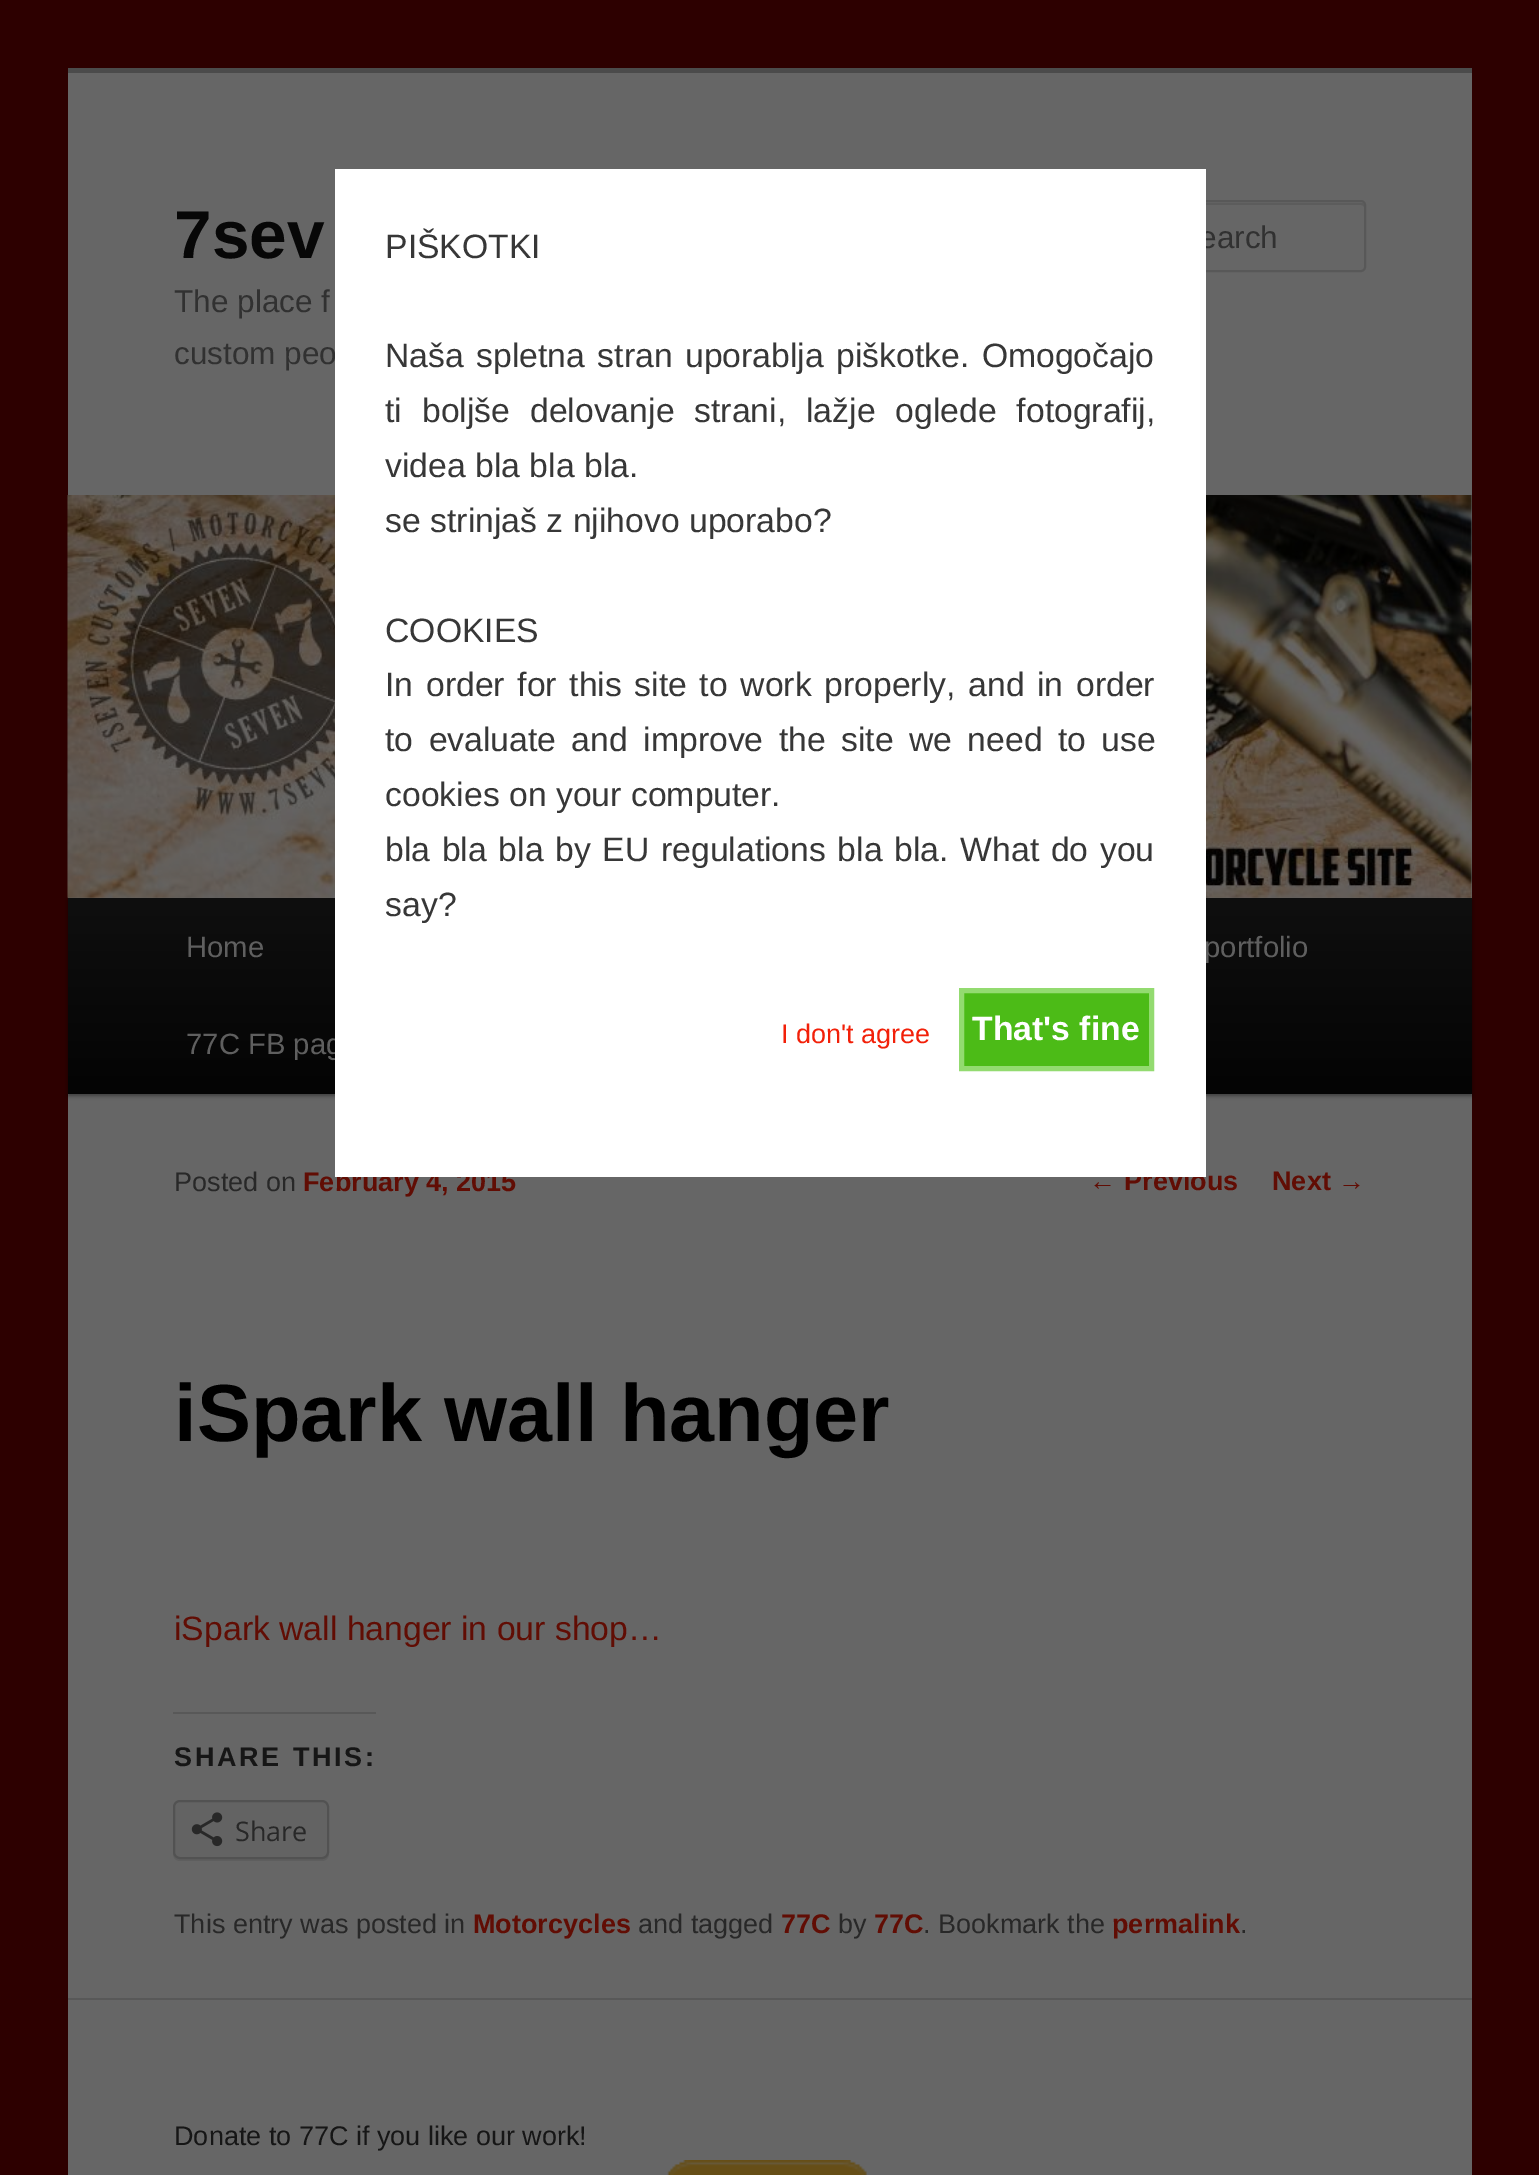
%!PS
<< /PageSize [1539 2175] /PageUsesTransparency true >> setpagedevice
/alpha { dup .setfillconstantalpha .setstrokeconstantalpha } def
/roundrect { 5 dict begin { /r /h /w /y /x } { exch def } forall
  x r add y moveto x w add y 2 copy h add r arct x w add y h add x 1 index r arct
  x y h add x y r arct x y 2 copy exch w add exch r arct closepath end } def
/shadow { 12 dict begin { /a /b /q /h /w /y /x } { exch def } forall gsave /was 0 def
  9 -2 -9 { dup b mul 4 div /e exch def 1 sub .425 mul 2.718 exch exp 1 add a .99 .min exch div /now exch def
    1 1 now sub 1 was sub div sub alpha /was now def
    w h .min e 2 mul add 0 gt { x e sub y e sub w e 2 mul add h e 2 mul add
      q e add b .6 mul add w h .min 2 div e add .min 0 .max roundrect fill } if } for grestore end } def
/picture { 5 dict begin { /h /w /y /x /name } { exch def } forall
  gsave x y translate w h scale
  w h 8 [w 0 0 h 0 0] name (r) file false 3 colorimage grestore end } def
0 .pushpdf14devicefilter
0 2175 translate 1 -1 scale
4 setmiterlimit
0.176 0 0 setrgbcolor
0 0 1539 2175 rectfill
0.4 setgray
68 73 1404 2102 rectfill
0.294 setgray
68 68 1404 5 rectfill
/LiberationSans-Bold [67.5 0 0 -67.5 0 0] selectfont
0.027 setgray
174 258 moveto (7sev) show
/LiberationSans-Regular [31.5 0 0 -31.5 0 0] selectfont
0.192 setgray
174 312 moveto (The place f) show
174 364 moveto (custom peo) show
0.361 setgray
newpath 1118 205 moveto 1361 205 lineto 1362 205 1364 206 1364 207 curveto 1364 205 1364 203 1362 203 curveto 1118 203 lineto 1116 203 1116 205 1116 207 curveto 1116 206 1117 205 1118 205 curveto closepath fill
0.345 setgray
2 setlinewidth
1115 201 250 70 4 roundrect stroke
0.192 setgray
1199 248 moveto (earch) show
0 setgray
68 900 1404 196 0 2 0.4 shadow
(img1.rgb) 67 495 1405 403 picture
gsave newpath 68 898 moveto 1472 898 lineto 1472 1094 lineto 68 1094 lineto closepath clip newpath
<< /ShadingType 2 /ColorSpace /DeviceRGB /Coords [770 898 770 1094] /Extend [true true] /Function << /FunctionType 2 /Domain [0 1] /C0 [0.059 0.059 0.059] /C1 [0.016 0.016 0.016] /N 1 >> >> shfill grestore
/LiberationSans-Regular [29.25 0 0 -29.25 0 0] selectfont
0.373 setgray
186 957 moveto (Home) show
1204 957 moveto (portfolio) show
186 1054 moveto (77C FB pag) show
/LiberationSans-Regular [27 0 0 -27 0 0] selectfont
0.38 0.051 0.016 setrgbcolor
1089 1190 moveto (←) show
/LiberationSans-Bold [27 0 0 -27 0 0] selectfont
1124 1190 moveto (Previous) show
1272 1190 moveto (Next) show
/LiberationSans-Regular [27 0 0 -27 0 0] selectfont
1338 1190 moveto (→) show
0.157 setgray
174 1191 moveto (Posted on) show
/LiberationSans-Bold [27 0 0 -27 0 0] selectfont
0.38 0.051 0.016 setrgbcolor
303 1191 moveto (February 4, 2015) show
/LiberationSans-Bold [81 0 0 -81 0 0] selectfont
0 setgray
174 1441 moveto (iSpark wall hanger) show
/LiberationSans-Regular [33.75 0 0 -33.75 0 0] selectfont
0.38 0.051 0.016 setrgbcolor
174 1640 moveto (iSpark wall hanger in our shop…) show
0.345 setgray
173 1712 203 2 rectfill
/LiberationSans-Bold [27 0 0 -27 0 0] selectfont
0.086 setgray
174 1766 moveto 2.75 0 (SHARE THIS:) ashow
0.369 setgray
newpath 173 1807 moveto 173 1854 lineto 173 1858 176 1861 180 1861 curveto 322 1861 lineto 326 1861 329 1858 329 1854 curveto 329 1809 lineto 328 1806 lineto 328 1852 lineto 328 1855 325 1858 322 1858 curveto 180 1858 lineto 176 1858 173 1855 173 1852 curveto closepath fill
0.388 setgray
174 1801 154 57 6 roundrect gsave fill grestore
0.322 setgray
stroke
(img2.rgb) 191 1812 32 35 picture
/OpenSans-Regular [27 0 0 -27 0 0] selectfont
0.157 setgray
235 1841 moveto (Share) show
/LiberationSans-Regular [27 0 0 -27 0 0] selectfont
174 1933 moveto (This entry was posted in) show
/LiberationSans-Bold [27 0 0 -27 0 0] selectfont
0.38 0.051 0.016 setrgbcolor
473 1933 moveto (Motorcycles) show
/LiberationSans-Regular [27 0 0 -27 0 0] selectfont
0.157 setgray
638 1933 moveto (and tagged) show
/LiberationSans-Bold [27 0 0 -27 0 0] selectfont
0.38 0.051 0.016 setrgbcolor
781 1933 moveto (77C) show
/LiberationSans-Regular [27 0 0 -27 0 0] selectfont
0.157 setgray
838 1933 moveto (by) show
/LiberationSans-Bold [27 0 0 -27 0 0] selectfont
0.38 0.051 0.016 setrgbcolor
874 1933 moveto (77C) show
/LiberationSans-Regular [27 0 0 -27 0 0] selectfont
0.157 setgray
923 1933 moveto (. Bookmark the) show
/LiberationSans-Bold [27 0 0 -27 0 0] selectfont
0.38 0.051 0.016 setrgbcolor
1112 1933 moveto (permalink) show
/LiberationSans-Regular [27 0 0 -27 0 0] selectfont
0.157 setgray
1240 1933 moveto (.) show
0.345 setgray
68 1998 1404 2 rectfill
0.086 setgray
174 2145 moveto (Donate to 77C if you like our work!) show
(img3.rgb) 667 2160 200 15 picture
1 setgray
335 169 871 1008 rectfill
/LiberationSans-Regular [33.75 0 0 -33.75 0 0] selectfont
0.216 setgray
385 258 moveto (PIŠKOTKI) show
385 367 moveto 3 0 32 (Naša spletna stran uporablja piškotke. Omogočajo) widthshow
385 422 moveto 10.5 0 32 (ti boljše delovanje strani, lažje oglede fotografij,) widthshow
385 477 moveto (videa bla bla bla.) show
385 532 moveto (se strinjaš z njihovo uporabo?) show
385 642 moveto (COOKIES) show
385 696 moveto 3.25 0 32 (In order for this site to work properly, and in order) widthshow
385 751 moveto 6 0 32 (to evaluate and improve the site we need to use) widthshow
385 806 moveto (cookies on your computer.) show
385 861 moveto 2.25 0 32 (bla bla bla by EU regulations bla bla. What do you) widthshow
385 916 moveto (say?) show
/LiberationSans-Regular [27 0 0 -27 0 0] selectfont
0.949 0.125 0.035 setrgbcolor
781 1043 moveto (I don't agree) show
0.298 0.733 0.09 setrgbcolor
newpath 961.5 990.5 moveto 1151.5 990.5 lineto 1151.5 1068.5 lineto 961.5 1068.5 lineto closepath gsave fill grestore
0.576 0.859 0.439 setrgbcolor
5 setlinewidth
stroke
/LiberationSans-Bold [33.75 0 0 -33.75 0 0] selectfont
1 setgray
972 1040 moveto (That's fine) show
.poppdf14devicefilter showpage
